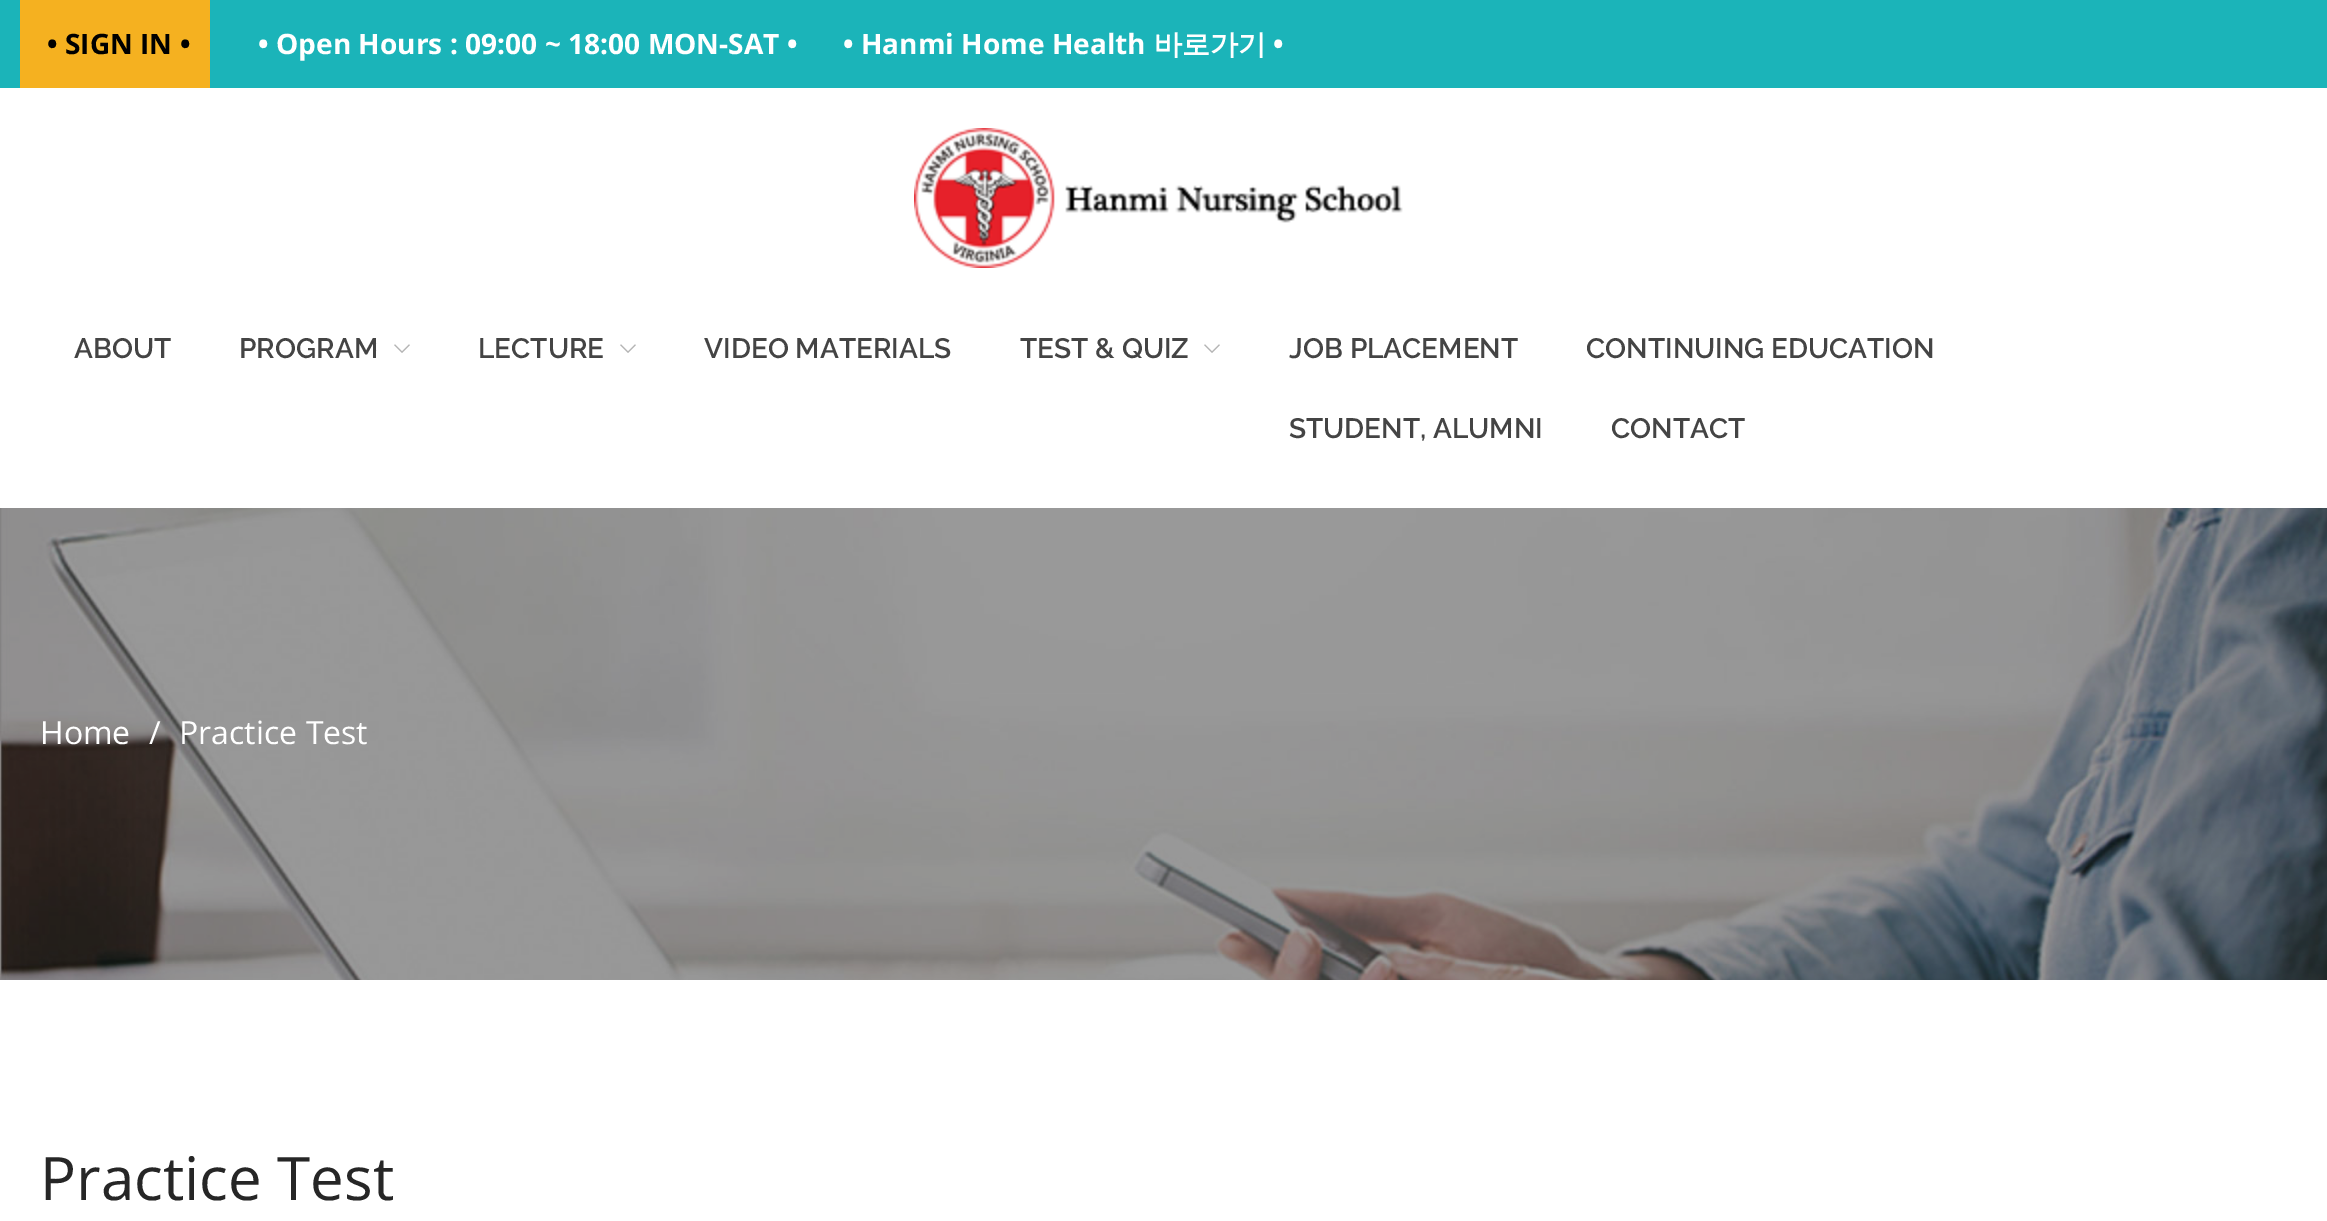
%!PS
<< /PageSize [2327 1221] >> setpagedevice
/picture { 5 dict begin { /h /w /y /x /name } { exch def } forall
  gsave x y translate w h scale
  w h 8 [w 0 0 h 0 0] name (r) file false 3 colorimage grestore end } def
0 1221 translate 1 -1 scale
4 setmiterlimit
1 setgray
0 0 2327 1221 rectfill
0.106 0.706 0.725 setrgbcolor
0 0 2327 88 rectfill
0.961 0.694 0.125 setrgbcolor
20 0 190 88 rectfill
/OpenSans-Bold [28.1 0 0 -28.1 0 0] selectfont
0 setgray
47 54 moveto (• SIGN IN •) show
1 setgray
258 54 moveto (• Open Hours : 09:00 ~ 18:00 MON-SAT •) show
843 54 moveto (• Hanmi Home Health) show
/WenQuanYiZenHei-Bold [28.1 0 0 -28.1 0 0] selectfont
1154 54 moveto (바로가기) show
/OpenSans-Bold [28.1 0 0 -28.1 0 0] selectfont
1273 54 moveto (•) show
(img1.rgb) 914 128 489 140 picture
/Raleway-SemiBold [28 0 0 -28 0 0] selectfont
0.267 setgray
74 358 moveto (ABOUT) show
239 358 moveto (PROGRAM) show
(img2.rgb) 394 344 16 9 picture
478 358 moveto (LECTURE) show
(img2.rgb) 620 344 16 9 picture
704 358 moveto (VIDEO MATERIALS) show
1020 358 moveto (TEST & QUIZ) show
(img2.rgb) 1204 344 16 9 picture
1289 358 moveto (JOB PLACEMENT) show
1586 358 moveto (CONTINUING EDUCATION) show
1289 438 moveto (STUDENT, ALUMNI) show
1611 438 moveto (CONTACT) show
(img3.rgb) 0 508 2327 472 picture
/OpenSans-Regular [32 0 0 -32 0 0] selectfont
1 setgray
40 744 moveto (Home) show
149 744 moveto (/) show
179 744 moveto (Practice Test) show
/OpenSans-Regular [60 0 0 -60 0 0] selectfont
0.149 setgray
40 1200 moveto (Practice Test) show
showpage
